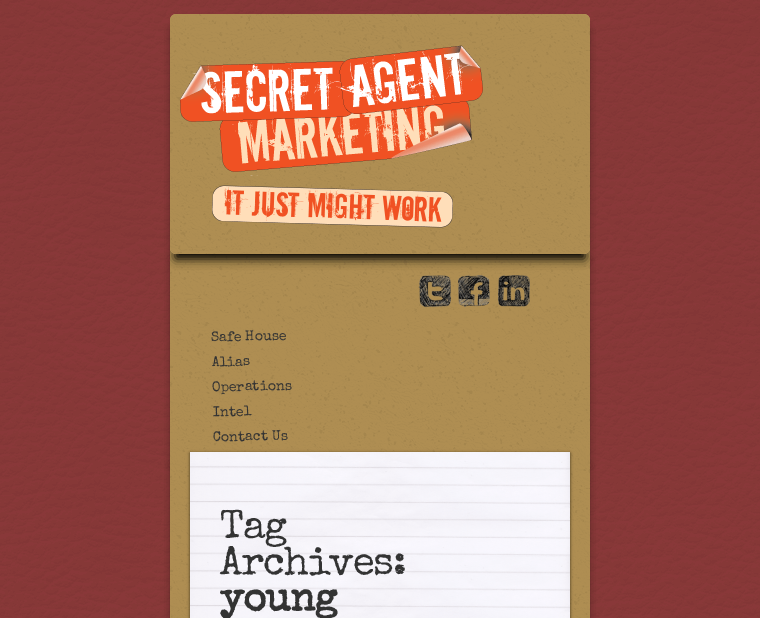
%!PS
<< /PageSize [760 618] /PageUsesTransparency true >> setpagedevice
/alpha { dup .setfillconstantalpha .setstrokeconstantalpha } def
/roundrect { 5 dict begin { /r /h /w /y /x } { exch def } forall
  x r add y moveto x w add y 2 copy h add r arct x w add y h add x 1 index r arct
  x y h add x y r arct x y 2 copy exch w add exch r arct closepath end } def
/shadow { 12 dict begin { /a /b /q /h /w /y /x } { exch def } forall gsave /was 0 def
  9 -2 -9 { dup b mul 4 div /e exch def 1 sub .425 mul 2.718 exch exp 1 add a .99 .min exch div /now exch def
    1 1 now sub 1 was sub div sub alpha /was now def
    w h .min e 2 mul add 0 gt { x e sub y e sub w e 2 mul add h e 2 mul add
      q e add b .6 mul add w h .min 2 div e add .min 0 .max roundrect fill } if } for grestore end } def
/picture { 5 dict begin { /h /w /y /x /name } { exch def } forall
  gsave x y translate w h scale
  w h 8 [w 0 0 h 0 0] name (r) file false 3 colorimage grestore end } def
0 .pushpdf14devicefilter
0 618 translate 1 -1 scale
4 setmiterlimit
1 setgray
0 0 760 618 rectfill
(img1.rgb) 0 0 760 618 picture
0 setgray
175 263 410 200 0 5 1 shadow
(img8.rgb) 170 248 420 204 picture
175 29 410 230 1 5 1 shadow
(img2.rgb) 170 14 420 240 picture
(img3.rgb) 180 45 303 131 picture
(img4.rgb) 212 185 241 43 picture
(img5.rgb) 419 275 32 32 picture
(img6.rgb) 458 275 32 32 picture
(img7.rgb) 498 275 32 32 picture
/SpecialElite-Regular [14 0 0 -14 0 0] selectfont
0.2 setgray
gsave 211 341 translate -1 rotate 0 0 moveto (Safe House) show grestore
gsave 212 366 translate -1 rotate 0 0 moveto (Alias) show grestore
gsave 212 391 translate -1 rotate 0 0 moveto (Operations) show grestore
gsave 213 416 translate -1 rotate 0 0 moveto (Intel) show grestore
gsave 213 441 translate -1 rotate 0 0 moveto (Contact Us) show grestore
0 setgray
175 467 410 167 1 5 1 shadow
(img9.rgb) 170 452 420 166 picture
190 453 380 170 0 1.5 0.6 shadow
(img10.rgb) 190 452 380 166 picture
/SpecialElite-Regular [40 0 0 -40 0 0] selectfont
0.2 setgray
220 538 moveto -1 0 (Tag) ashow
220 574 moveto -1 0 (Archives:) ashow
/SpecialElite-Bold [40 0 0 -40 0 0] selectfont
220 610 moveto -1 0 (young) ashow
.poppdf14devicefilter showpage
